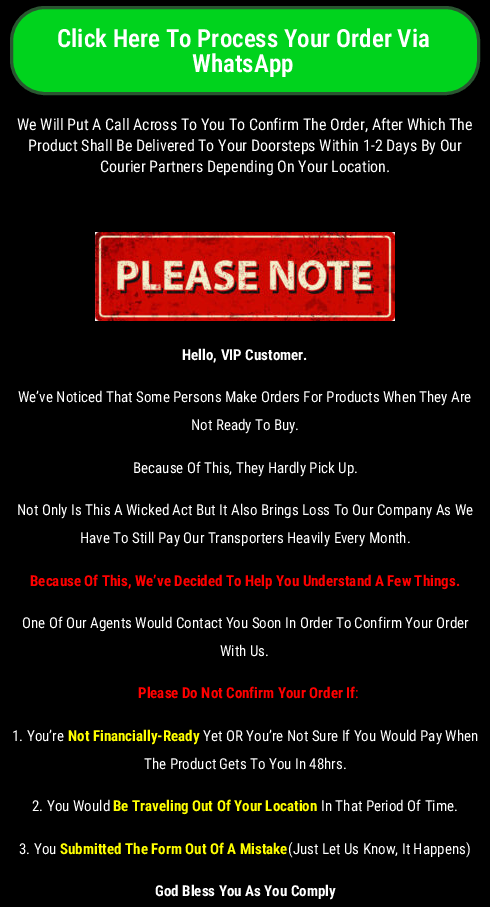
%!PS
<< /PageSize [490 907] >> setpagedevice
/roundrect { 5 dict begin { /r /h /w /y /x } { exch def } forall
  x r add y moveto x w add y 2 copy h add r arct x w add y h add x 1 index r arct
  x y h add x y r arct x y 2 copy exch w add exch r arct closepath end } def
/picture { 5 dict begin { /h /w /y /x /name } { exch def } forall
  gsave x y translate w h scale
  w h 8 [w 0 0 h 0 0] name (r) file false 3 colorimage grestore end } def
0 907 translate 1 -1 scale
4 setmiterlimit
0 setgray
0 0 490 907 rectfill
0 0.827 0.114 setrgbcolor
11.5 7.5 467 86 33.5 roundrect gsave fill grestore
0.165 0.337 0.192 setrgbcolor
3 setlinewidth
stroke
/RobotoCondensed-SemiBold [25 0 0 -25 0 0] selectfont
1 setgray
57 47 moveto (Click Here To Process Your Order Via) show
192 72 moveto (WhatsApp) show
/RobotoCondensed-Regular [16 0 0 -16 0 0] selectfont
17 130 moveto (We Will Put A Call Across To You To Confirm The Order, After Which The) show
28 151 moveto (Product Shall Be Delivered To Your Doorsteps Within 1-2 Days By Our) show
100 172 moveto (Courier Partners Depending On Your Location.) show
(img1.rgb) 95 232 300 89 picture
/RobotoCondensed-Bold [15 0 0 -15 0 0] selectfont
182 360 moveto (Hello, VIP Customer.) show
/RobotoCondensed-Regular [15 0 0 -15 0 0] selectfont
18 402 moveto (We’ve Noticed That Some Persons Make Orders For Products When They Are) show
191 430 moveto (Not Ready To Buy.) show
133 473 moveto (Because Of This, They Hardly Pick Up.) show
17 515 moveto (Not Only Is This A Wicked Act But It Also Brings Loss To Our Company As We) show
80 543 moveto (Have To Still Pay Our Transporters Heavily Every Month.) show
/RobotoCondensed-Bold [15 0 0 -15 0 0] selectfont
1 0 0 setrgbcolor
30 586 moveto (Because Of This, We’ve Decided To Help You Understand A Few Things.) show
/RobotoCondensed-Regular [15 0 0 -15 0 0] selectfont
1 setgray
22 628 moveto (One Of Our Agents Would Contact You Soon In Order To Confirm Your Order) show
220 656 moveto (With Us.) show
/RobotoCondensed-Bold [15 0 0 -15 0 0] selectfont
1 0 0 setrgbcolor
138 698 moveto (Please Do Not Confirm Your Order If) show
/RobotoCondensed-Regular [15 0 0 -15 0 0] selectfont
355 698 moveto (:) show
1 setgray
12 741 moveto (1. You’re) show
/RobotoCondensed-Bold [15 0 0 -15 0 0] selectfont
1 1 0 setrgbcolor
68 741 moveto (Not Financially-Ready) show
/RobotoCondensed-Regular [15 0 0 -15 0 0] selectfont
1 setgray
203 741 moveto (Yet OR You’re Not Sure If You Would Pay When) show
144 769 moveto (The Product Gets To You In 48hrs.) show
32 811 moveto (2. You Would) show
/RobotoCondensed-Bold [15 0 0 -15 0 0] selectfont
1 1 0 setrgbcolor
113 811 moveto (Be Traveling Out Of Your Location) show
/RobotoCondensed-Regular [15 0 0 -15 0 0] selectfont
1 setgray
321 811 moveto (In That Period Of Time.) show
19 854 moveto (3. You) show
/RobotoCondensed-Bold [15 0 0 -15 0 0] selectfont
1 1 0 setrgbcolor
60 854 moveto (Submitted The Form Out Of A Mistake) show
/RobotoCondensed-Regular [15 0 0 -15 0 0] selectfont
1 setgray
288 854 moveto (\(Just Let Us Know, It Happens\)) show
/RobotoCondensed-Bold [15 0 0 -15 0 0] selectfont
155 896 moveto (God Bless You As You Comply) show
showpage
